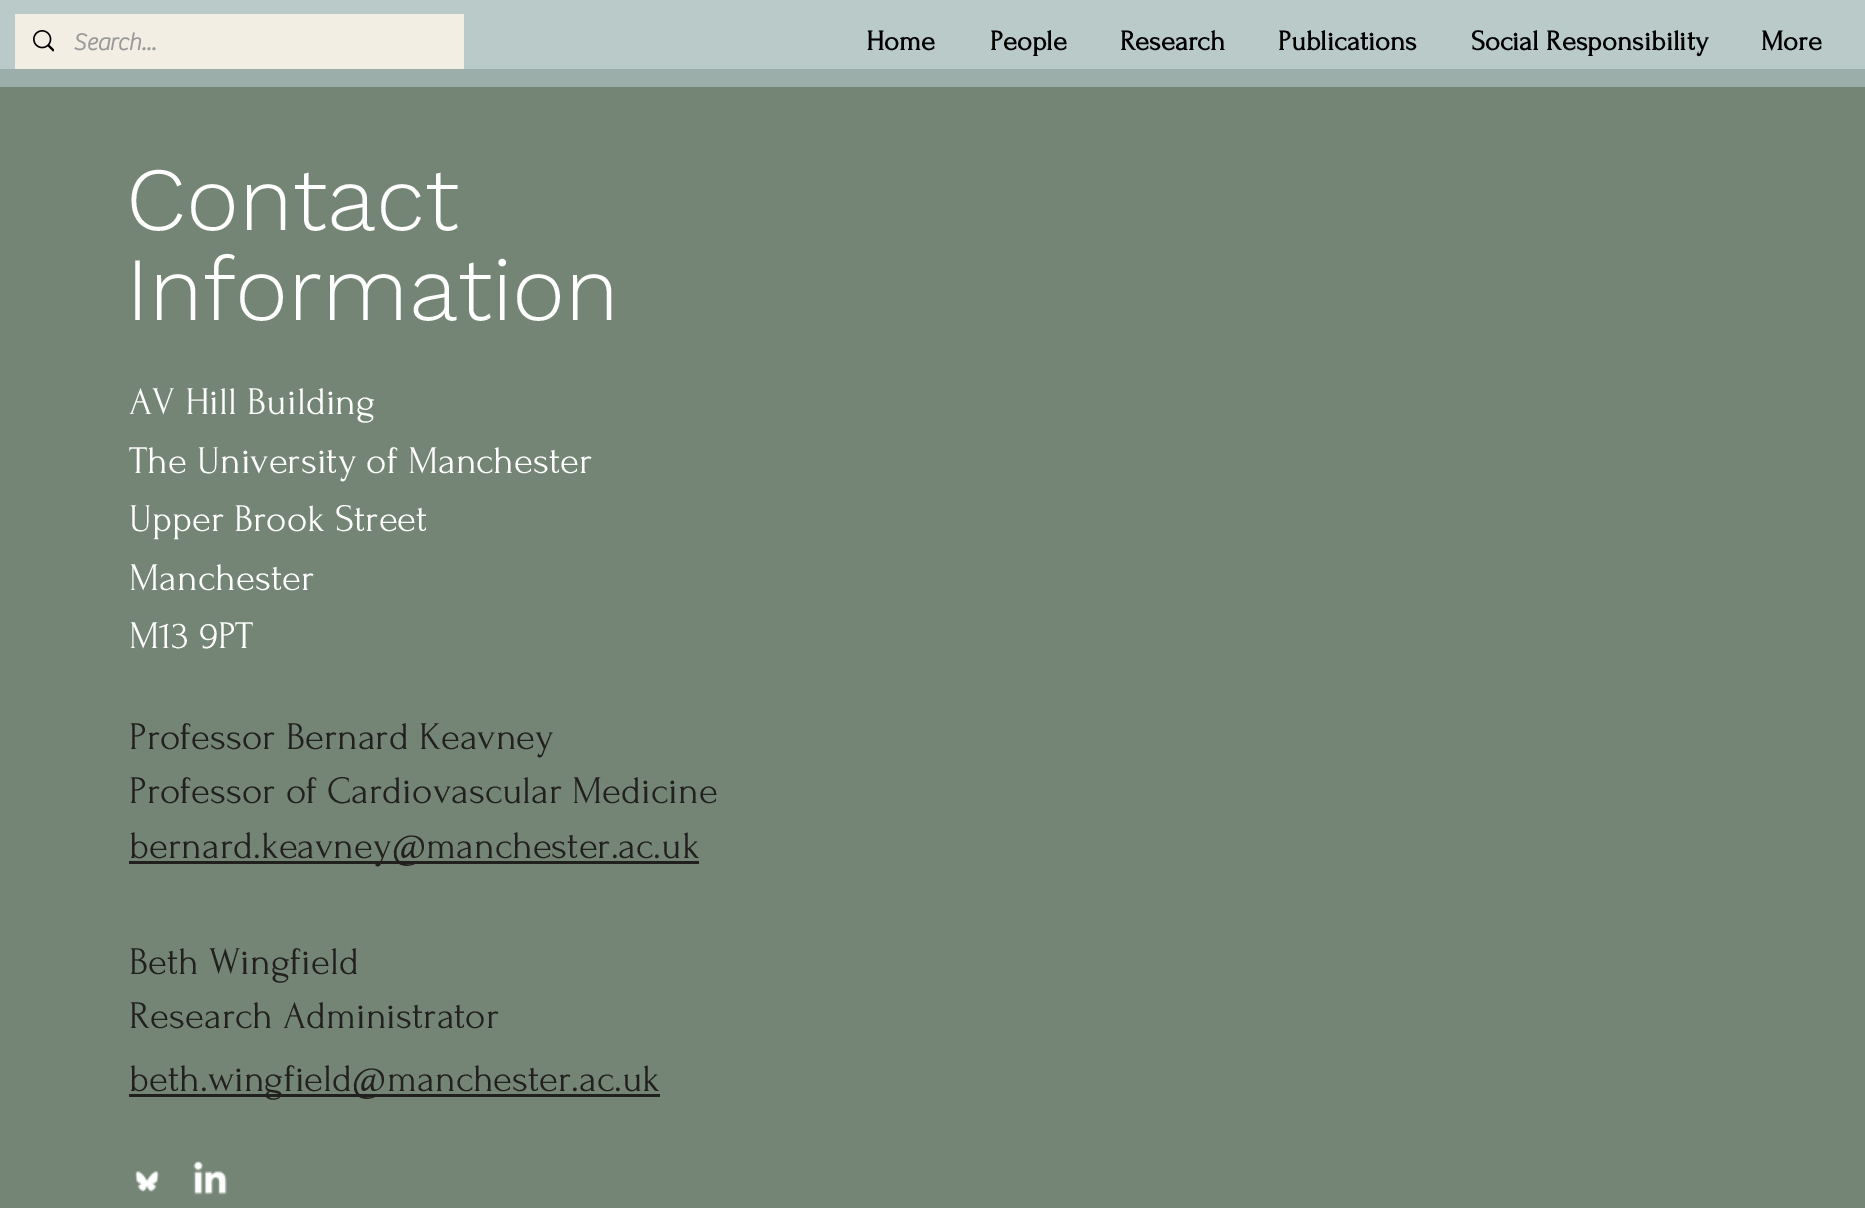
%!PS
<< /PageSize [1865 1208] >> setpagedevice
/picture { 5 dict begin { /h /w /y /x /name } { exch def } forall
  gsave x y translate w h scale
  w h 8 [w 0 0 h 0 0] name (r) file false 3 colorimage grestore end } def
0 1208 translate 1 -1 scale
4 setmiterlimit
0.729 0.792 0.788 setrgbcolor
0 0 1865 1208 rectfill
0.949 0.933 0.894 setrgbcolor
15 14 449 55 rectfill
(img1.rgb) 33 30 21 22 picture
/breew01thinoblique-Bold [24 0 0 -24 0 0] selectfont
0.6 setgray
73 50 moveto (Search...) show
/Forum-Bold [28.5 0 0 -28.5 0 0] selectfont
0 setgray
866 50 moveto (Home) show
990 50 moveto (People) show
1120 50 moveto (Research) show
1278 50 moveto (Publications) show
1471 50 moveto (Social Responsibility) show
1761 50 moveto (More) show
0.455 0.522 0.459 setrgbcolor
0 87 1865 42 rectfill
0.608 0.682 0.663 setrgbcolor
0 69 1865 18 rectfill
0.455 0.522 0.459 setrgbcolor
0 129 1865 1079 rectfill
/WorkSans-Light [90 0 0 -90 0 0] selectfont
1 setgray
126 230 moveto (Contact) show
126 320 moveto (Information) show
/Forum-Regular [39 0 0 -39 0 0] selectfont
129 414 moveto (AV Hill Building) show
129 473 moveto (The University of Manchester) show
129 531 moveto (Upper Brook Street) show
129 590 moveto (Manchester) show
129 648 moveto (M13 9PT) show
0.129 0.125 0.118 setrgbcolor
129 749 moveto (Professor Bernard Keavney) show
129 803 moveto (Professor of Cardiovascular Medicine) show
129 861 570 3 rectfill
129 858 moveto (bernard.keavney@manchester.ac.uk) show
129 974 moveto (Beth Wingfield) show
129 1028 moveto (Research Administrator) show
129 1094 531 3 rectfill
129 1091 moveto (beth.wingfield@manchester.ac.uk) show
(img2.rgb) 135 1171 25 21 picture
(img3.rgb) 193 1161 34 34 picture
showpage
